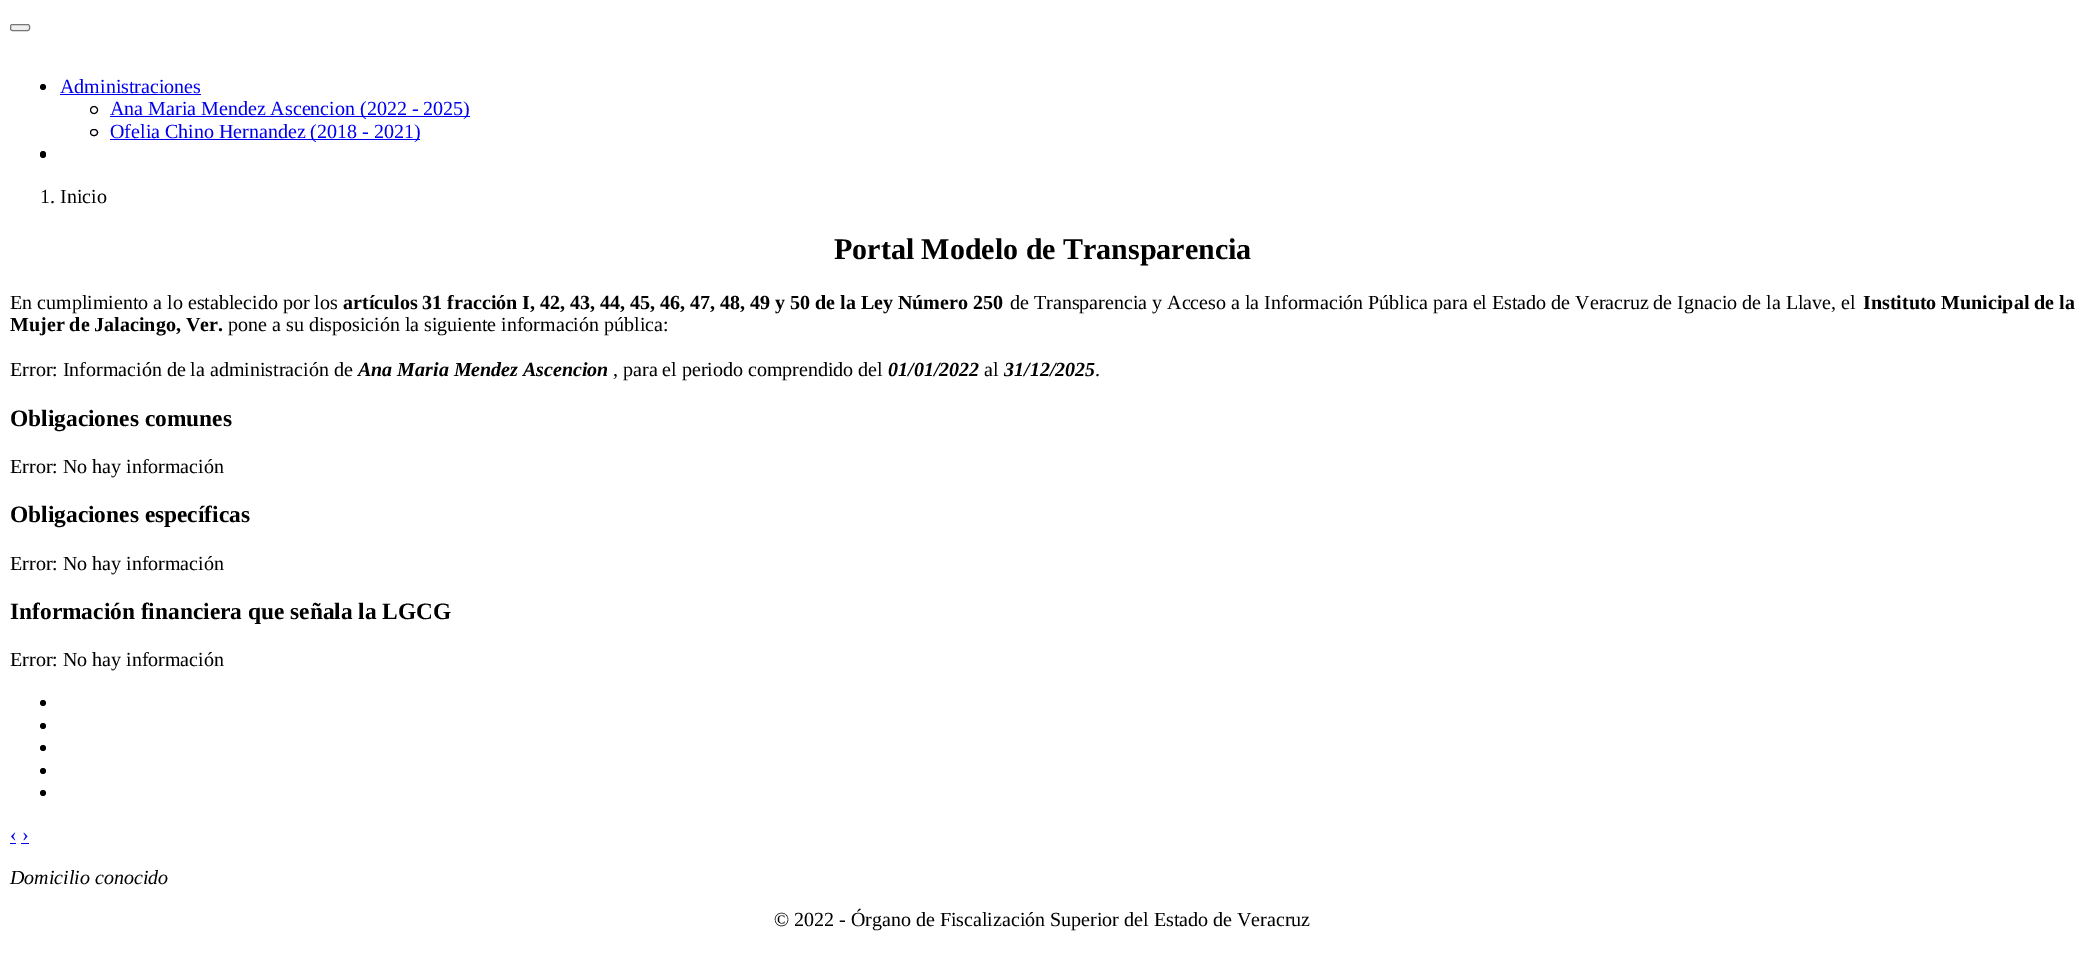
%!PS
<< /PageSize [2084 956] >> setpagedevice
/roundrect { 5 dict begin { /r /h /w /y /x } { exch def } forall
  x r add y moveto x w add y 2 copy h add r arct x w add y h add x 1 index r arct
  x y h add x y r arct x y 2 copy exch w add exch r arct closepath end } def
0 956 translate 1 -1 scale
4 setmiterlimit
1 setgray
0 0 2084 956 rectfill
0.937 setgray
10.5 24.5 19 6 2 roundrect gsave fill grestore
0.463 setgray
stroke
0 setgray
newpath 43 87 3 0 360 arc closepath fill
/LiberationSerif-Regular [20 0 0 -20 0 0] selectfont
0 0 0.933 setrgbcolor
60 93 moveto (Administraciones) show
60 94 141 1 rectfill
0 setgray
newpath 94 110 3.5 0 360 arc closepath stroke
0 0 0.933 setrgbcolor
110 116 360 1 rectfill
110 115 moveto (Ana Maria Mendez Ascencion \(2022 - 2025\)) show
0 setgray
90.5 129.5 7 6 3 roundrect stroke
0 0 0.933 setrgbcolor
110 139 310 1 rectfill
110 138 moveto (Ofelia Chino Hernandez \(2018 - 2021\)) show
0 setgray
40 151 6 7 3 roundrect fill
40 203 moveto (1. Inicio) show
/LiberationSerif-Bold [30 0 0 -30 0 0] selectfont
834 259 moveto (Portal Modelo de Transparencia) show
/LiberationSerif-Regular [20 0 0 -20 0 0] selectfont
10 309 moveto (En cumplimiento a lo establecido por los) show
/LiberationSerif-Bold [20 0 0 -20 0 0] selectfont
343 309 moveto (artículos 31 fracción I, 42, 43, 44, 45, 46, 47, 48, 49 y 50 de la Ley Número 250) show
/LiberationSerif-Regular [20 0 0 -20 0 0] selectfont
1010 309 moveto (de Transparencia y Acceso a la Información Pública para el Estado de Veracruz de Ignacio de la Llave, el) show
/LiberationSerif-Bold [20 0 0 -20 0 0] selectfont
1863 309 moveto (Instituto Municipal de la) show
10 331 moveto (Mujer de Jalacingo, Ver.) show
/LiberationSerif-Regular [20 0 0 -20 0 0] selectfont
228 331 moveto (pone a su disposición la siguiente información pública:) show
10 376 moveto (Error: Información de la administración de) show
/LiberationSerif-BoldItalic [20 0 0 -20 0 0] selectfont
358 376 moveto (Ana Maria Mendez Ascencion) show
/LiberationSerif-Regular [20 0 0 -20 0 0] selectfont
613 376 moveto (, para el periodo comprendido del) show
/LiberationSerif-BoldItalic [20 0 0 -20 0 0] selectfont
888 376 moveto (01/01/2022) show
/LiberationSerif-Regular [20 0 0 -20 0 0] selectfont
984 376 moveto (al) show
/LiberationSerif-BoldItalic [20 0 0 -20 0 0] selectfont
1004 376 moveto (31/12/2025) show
/LiberationSerif-Regular [20 0 0 -20 0 0] selectfont
1095 376 moveto (.) show
/LiberationSerif-Bold [23.4 0 0 -23.4 0 0] selectfont
10 426 moveto (Obligaciones comunes) show
/LiberationSerif-Regular [20 0 0 -20 0 0] selectfont
10 473 moveto (Error: No hay información) show
/LiberationSerif-Bold [23.4 0 0 -23.4 0 0] selectfont
10 522 moveto (Obligaciones específicas) show
/LiberationSerif-Regular [20 0 0 -20 0 0] selectfont
10 570 moveto (Error: No hay información) show
/LiberationSerif-Bold [23.4 0 0 -23.4 0 0] selectfont
10 619 moveto (Información financiera que señala la LGCG) show
/LiberationSerif-Regular [20 0 0 -20 0 0] selectfont
10 666 moveto (Error: No hay información) show
newpath 43 703 3 0 360 arc closepath fill
newpath 43 726 3 0 360 arc closepath fill
newpath 43 748 3 0 360 arc closepath fill
newpath 43 771 3 0 360 arc closepath fill
newpath 43 793 3 0 360 arc closepath fill
0 0 0.933 setrgbcolor
10 841 moveto (‹ ›) show
10 843 6 1 rectfill
21 843 8 1 rectfill
/LiberationSerif-Italic [20 0 0 -20 0 0] selectfont
0 setgray
10 884 moveto (Domicilio conocido) show
/LiberationSerif-Regular [20 0 0 -20 0 0] selectfont
774 926 moveto (© 2022 - Órgano de Fiscalización Superior del Estado de Veracruz) show
showpage
